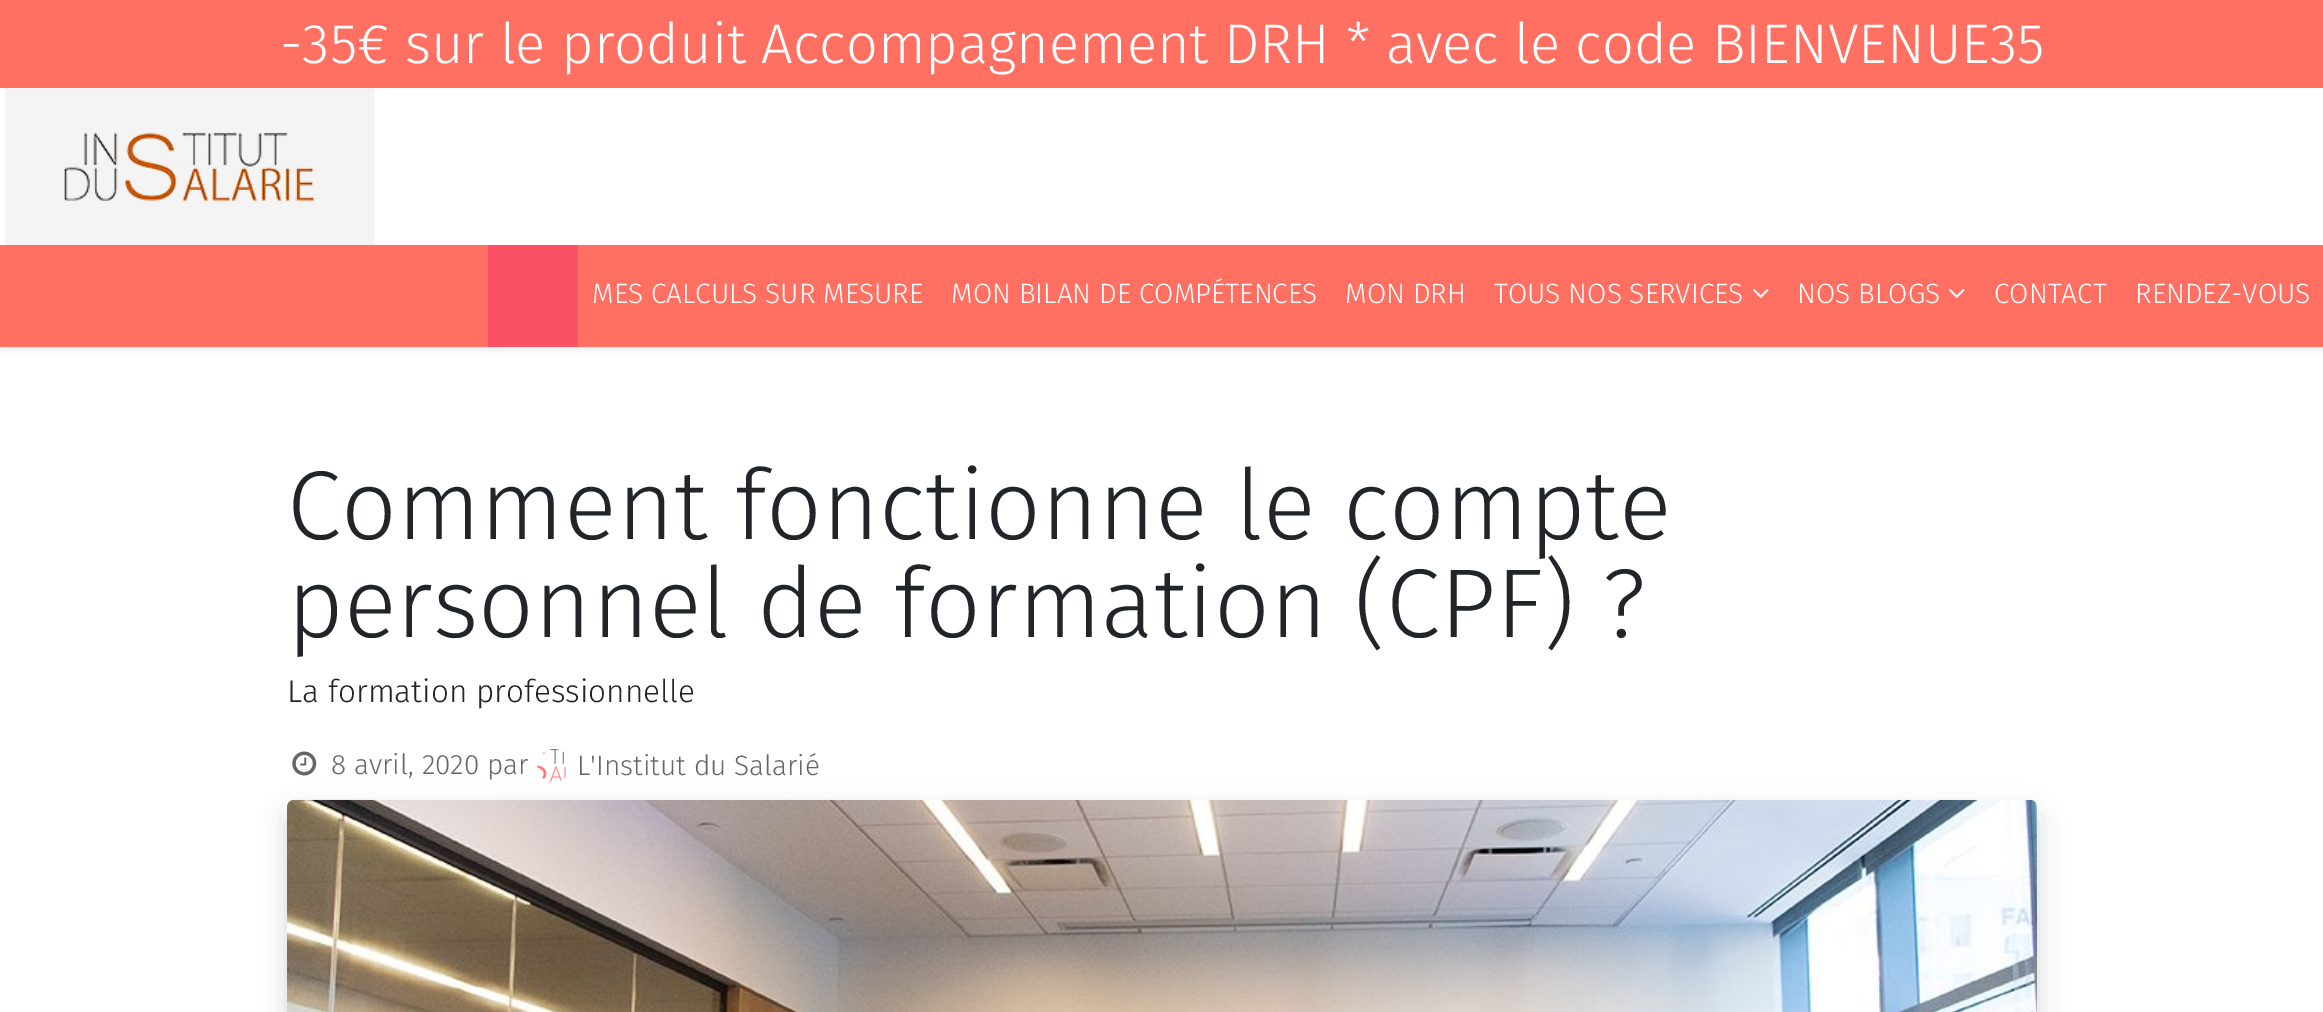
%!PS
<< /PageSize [2323 1012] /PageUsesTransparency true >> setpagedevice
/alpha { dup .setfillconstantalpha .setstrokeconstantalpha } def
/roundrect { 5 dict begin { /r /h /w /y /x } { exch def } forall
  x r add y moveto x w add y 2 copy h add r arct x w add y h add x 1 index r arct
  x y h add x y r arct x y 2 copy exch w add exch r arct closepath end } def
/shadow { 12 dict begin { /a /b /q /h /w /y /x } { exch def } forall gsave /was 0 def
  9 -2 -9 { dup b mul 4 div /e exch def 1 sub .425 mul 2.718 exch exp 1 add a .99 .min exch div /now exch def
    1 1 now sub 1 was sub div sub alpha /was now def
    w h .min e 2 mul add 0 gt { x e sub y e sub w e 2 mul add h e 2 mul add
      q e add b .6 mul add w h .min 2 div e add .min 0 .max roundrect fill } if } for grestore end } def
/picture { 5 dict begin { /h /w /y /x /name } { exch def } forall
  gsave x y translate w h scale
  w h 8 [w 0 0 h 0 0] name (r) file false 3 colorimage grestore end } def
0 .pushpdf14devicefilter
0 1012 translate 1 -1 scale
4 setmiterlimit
1 setgray
0 0 2323 1012 rectfill
1 0.439 0.384 setrgbcolor
0 0 2323 88 rectfill
/FiraSans-Light [56 0 0 -56 0 0] selectfont
1 setgray
280 63 moveto (-35€ sur le produit Accompagnement DRH * avec le code BIENVENUE35) show
(img1.rgb) 5 88 370 157 picture
0 setgray
0 249 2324 101 0 3.5 0.07 shadow
1 0.439 0.384 setrgbcolor
0 245 2323 102 rectfill
0.976 0.314 0.396 setrgbcolor
488 245 90 102 rectfill
/FiraSans-Light [28 0 0 -28 0 0] selectfont
1 setgray
592 303 moveto (MES CALCULS SUR MESURE) show
951 303 moveto (MON BILAN DE COMPÉTENCES) show
1345 303 moveto (MON DRH) show
1494 303 moveto (TOUS NOS SERVICES) show
(img2.rgb) 1753 289 16 9 picture
1797 303 moveto (NOS BLOGS) show
(img2.rgb) 1949 289 16 9 picture
1994 303 moveto (CONTACT) show
2135 303 moveto (RENDEZ-VOUS) show
/FiraSans-Light [98 0 0 -98 0 0] selectfont
0.129 0.145 0.161 setrgbcolor
287 539 moveto (Comment fonctionne le compte) show
287 637 moveto (personnel de formation \(CPF\) ?) show
/FiraSans-Light [31.5 0 0 -31.5 0 0] selectfont
287 702 moveto (La formation professionnelle) show
(img3.rgb) 292 751 25 25 picture
/FiraSans-Light [28 0 0 -28 0 0] selectfont
0.392 0.4 0.412 setrgbcolor
331 774 moveto (8 avril, 2020 par) show
(img4.rgb) 537 749 33 33 picture
577 775 moveto (L'Institut du Salarié) show
0 setgray
287 814 1750 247 7 14 0.15 shadow
(img5.rgb) 287 799 1750 213 picture
.poppdf14devicefilter showpage
